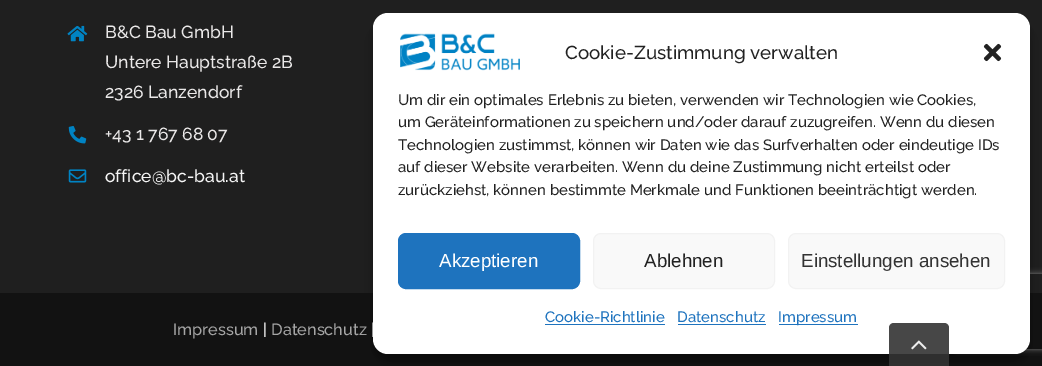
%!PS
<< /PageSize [1042 366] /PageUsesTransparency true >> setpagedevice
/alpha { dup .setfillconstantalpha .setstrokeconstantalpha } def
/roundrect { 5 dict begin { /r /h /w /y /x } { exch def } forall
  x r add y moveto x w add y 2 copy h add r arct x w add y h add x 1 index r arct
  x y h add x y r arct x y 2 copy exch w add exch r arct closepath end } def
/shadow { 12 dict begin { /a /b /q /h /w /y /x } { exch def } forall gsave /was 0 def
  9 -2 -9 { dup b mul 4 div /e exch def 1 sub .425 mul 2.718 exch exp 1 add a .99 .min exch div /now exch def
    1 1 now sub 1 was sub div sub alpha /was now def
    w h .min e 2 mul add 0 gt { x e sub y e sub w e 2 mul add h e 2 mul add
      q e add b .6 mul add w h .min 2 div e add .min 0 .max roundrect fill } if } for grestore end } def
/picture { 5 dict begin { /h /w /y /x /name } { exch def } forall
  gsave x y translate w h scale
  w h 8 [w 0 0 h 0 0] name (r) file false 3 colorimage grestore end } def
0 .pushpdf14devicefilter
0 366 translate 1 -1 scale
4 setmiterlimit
0.122 setgray
0 0 1042 366 rectfill
(img1.rgb) 67 25 21 17 picture
/Raleway-Medium [17.5 0 0 -17.5 0 0] selectfont
0.918 0.91 0.91 setrgbcolor
105 38 moveto (B&C Bau GmbH) show
105 68 moveto (Untere Hauptstraße 2B) show
105 98 moveto (2326 Lanzendorf) show
(img2.rgb) 68 126 19 18 picture
105 140 moveto (+43 1 767 68 07) show
(img3.rgb) 68 169 19 14 picture
0.961 setgray
105 182 moveto (office@bc-bau.at) show
0.071 setgray
0 293 1042 73 rectfill
/Raleway-Medium [16.25 0 0 -16.25 0 0] selectfont
0.651 setgray
173 335 moveto (Impressum) show
1 setgray
263 335 moveto (|) show
0.651 setgray
271 335 moveto (Datenschutz) show
1 setgray
371 335 moveto (|) show
0 setgray
373 20 657 341 15 4 0.23 shadow
373 25 657 341 15 12.5 0.19 shadow
gsave
newpath 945 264 moveto 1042 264 lineto 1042 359 lineto 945 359 lineto closepath 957.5 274 moveto 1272.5 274 lineto 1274 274 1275 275 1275 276.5 curveto 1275 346.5 lineto 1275 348 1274 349 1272.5 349 curveto 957.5 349 lineto 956 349 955 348 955 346.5 curveto 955 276.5 lineto 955 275 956 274 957.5 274 curveto closepath eoclip newpath
0.502 setgray
955 274 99 75 2.5 3 1 shadow
grestore
1 setgray
373 13 657 341 15 roundrect fill
(img4.rgb) 400 33 120 38 picture
/Raleway-Medium [18.75 0 0 -18.75 0 0] selectfont
0.133 setgray
565 59 moveto (Cookie-Zustimmung verwalten) show
(img5.rgb) 983 43 19 19 picture
/Raleway-Medium [15 0 0 -15 0 0] selectfont
398 105 moveto (Um dir ein optimales Erlebnis zu bieten, verwenden wir Technologien wie Cookies,) show
398 127 moveto (um Geräteinformationen zu speichern und/oder darauf zuzugreifen. Wenn du diesen) show
398 150 moveto (Technologien zustimmst, können wir Daten wie das Surfverhalten oder eindeutige IDs) show
398 172 moveto (auf dieser Website verarbeiten. Wenn du deine Zustimmung nicht erteilst oder) show
398 195 moveto (zurückziehst, können bestimmte Merkmale und Funktionen beeinträchtigt werden.) show
0.118 0.451 0.745 setrgbcolor
398.5 233.5 181 55 7.5 roundrect gsave fill grestore
stroke
/LiberationSans-Regular [18.75 0 0 -18.75 0 0] selectfont
1 setgray
439 267 moveto (Akzeptieren) show
0.976 setgray
593.5 233.5 181 55 7.5 roundrect gsave fill grestore
0.949 setgray
stroke
0.133 setgray
644 267 moveto (Ablehnen) show
0.976 setgray
788.5 233.5 216 55 7.5 roundrect gsave fill grestore
0.949 setgray
stroke
0.2 setgray
801 267 moveto (Einstellungen ansehen) show
/Raleway-Medium [15 0 0 -15 0 0] selectfont
0.118 0.451 0.745 setrgbcolor
545 322 moveto (Cookie-Richtlinie) show
545 324 120 1 rectfill
677 322 moveto (Datenschutz) show
678 324 88 1 rectfill
779 324 79 1 rectfill
778 322 moveto (Impressum) show
0.9 alpha
0.2 setgray
newpath 894 323 moveto 944 323 lineto 947 323 949 325 949 328 curveto 949 366 lineto 889 366 lineto 889 328 lineto 889 325 891 323 894 323 curveto closepath fill
1 alpha
(img6.rgb) 911 340 16 10 picture
.poppdf14devicefilter showpage
